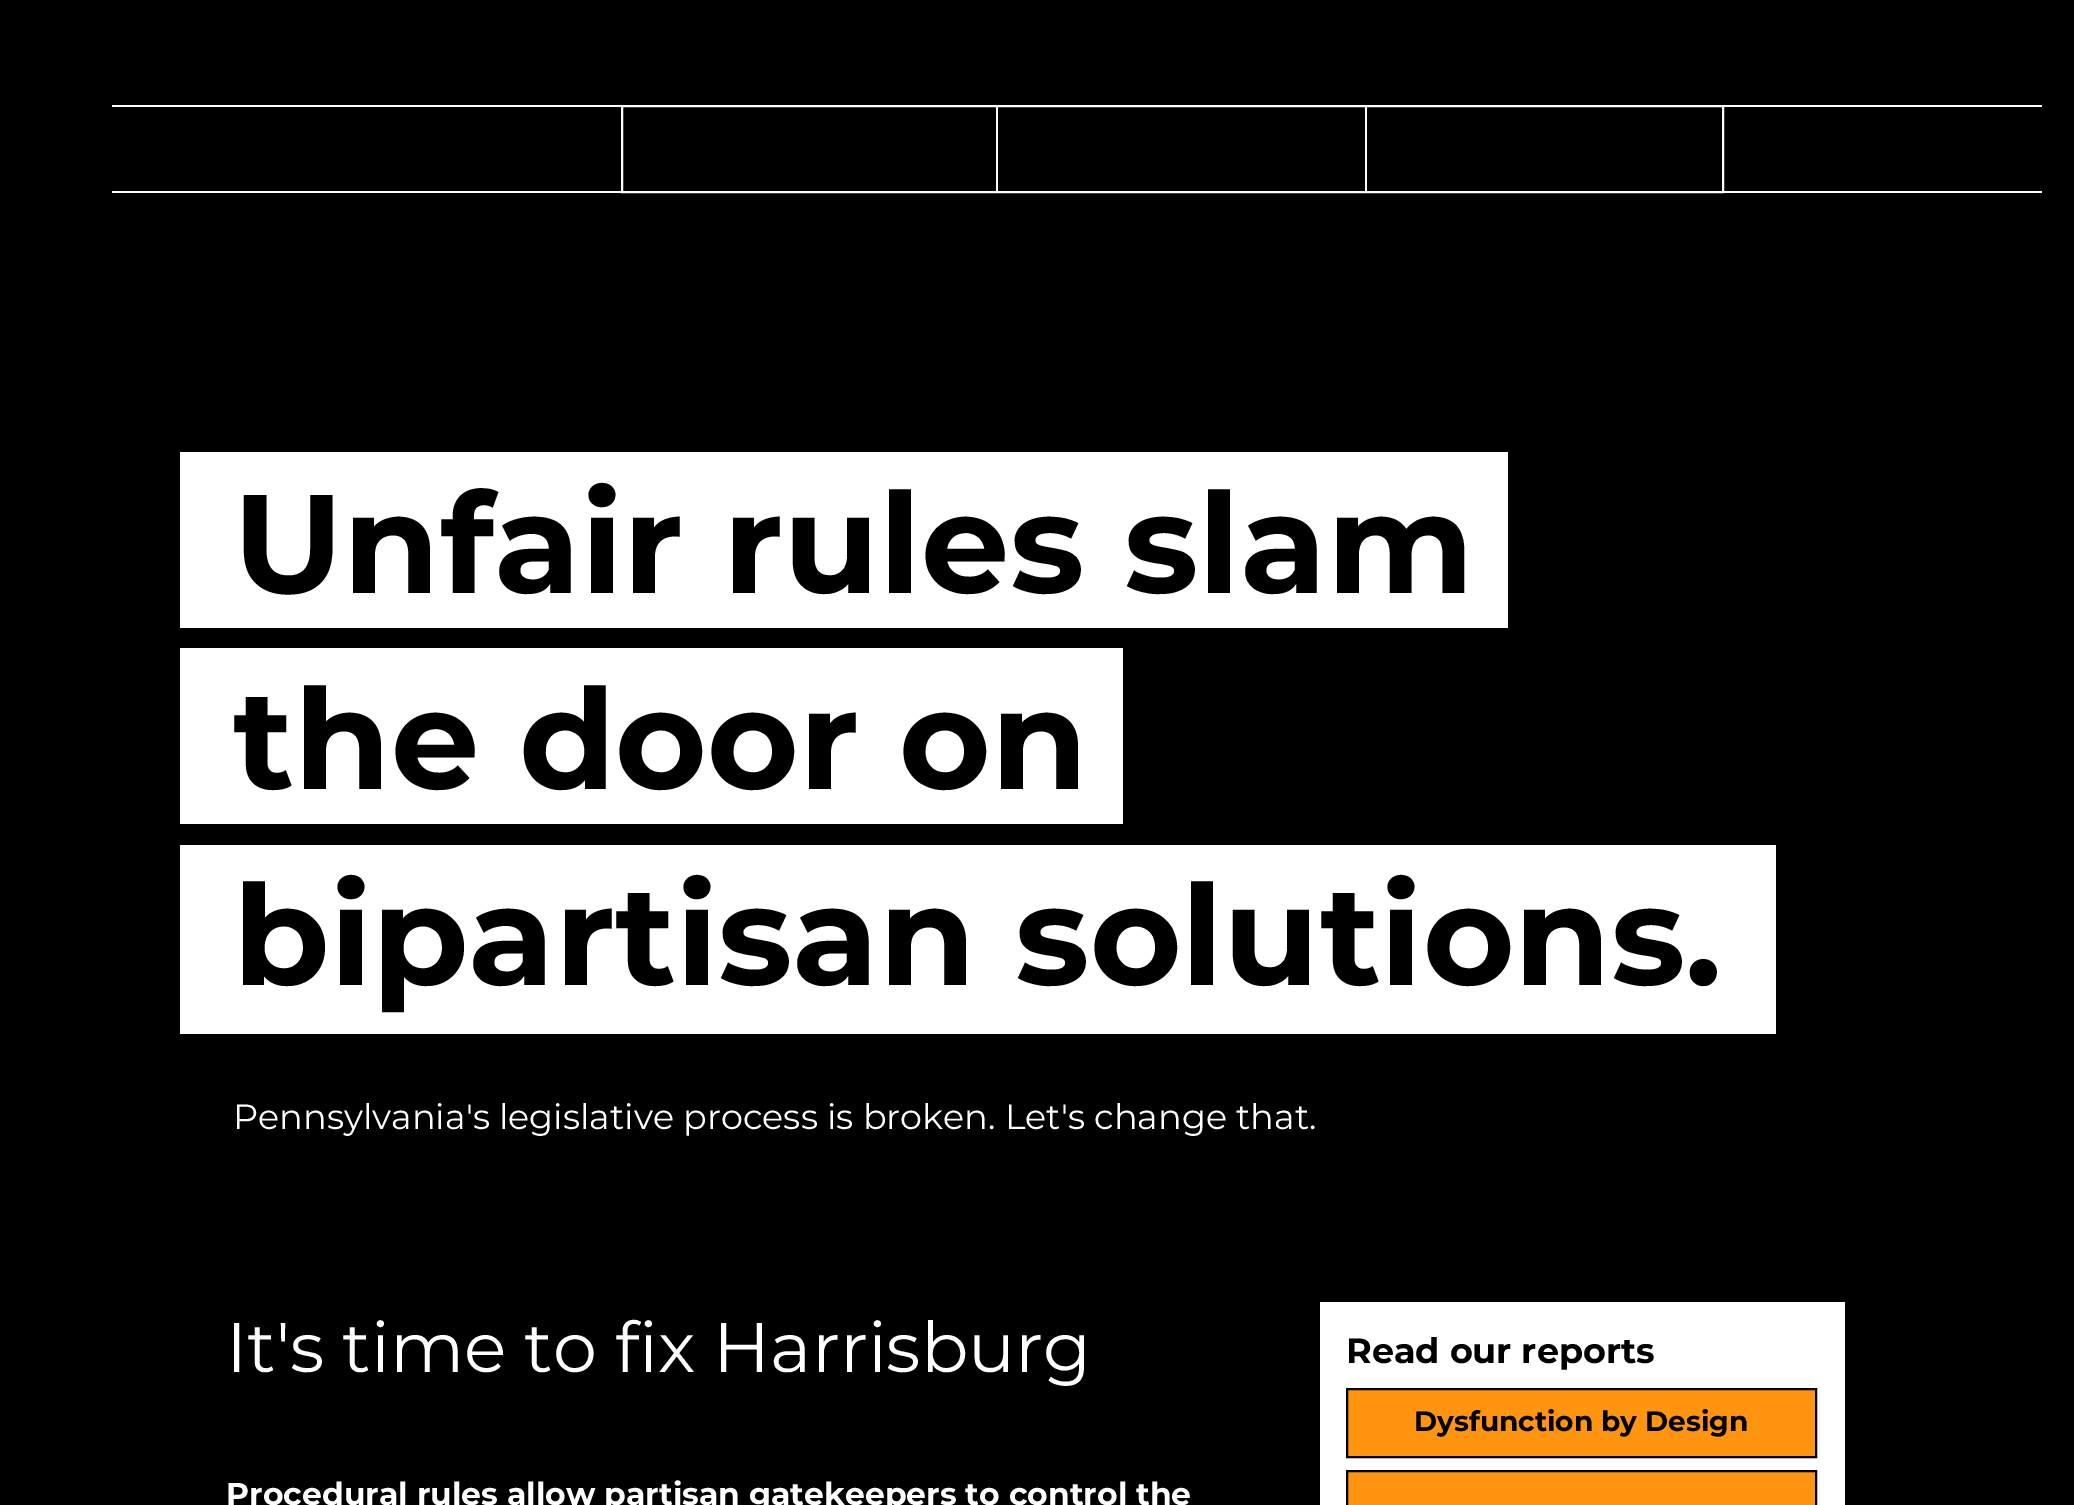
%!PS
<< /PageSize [2074 1505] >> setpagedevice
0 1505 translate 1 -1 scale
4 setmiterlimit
0 setgray
0 0 2074 1505 rectfill
1 setgray
112 105 453 2 rectfill
112 191 453 2 rectfill
2 setlinewidth
622 106 1101 86 rectstroke
996 107 2 84 rectfill
1365 107 2 84 rectfill
565 105 1477 2 rectfill
565 191 1477 2 rectfill
180 452 1328 176 rectfill
/Montserrat-Bold [140 0 0 -140 0 0] selectfont
0 setgray
233 593 moveto (Unfair rules slam) show
1 setgray
180 648 943 176 rectfill
0 setgray
233 789 moveto (the door on) show
1 setgray
180 845 1596 189 rectfill
0 setgray
233 985 moveto (bipartisan solutions.) show
/Montserrat-Regular [35 0 0 -35 0 0] selectfont
1 setgray
233 1129 moveto (Pennsylvania's legislative process is broken. Let's change that.) show
/Montserrat-Regular [70 0 0 -70 0 0] selectfont
226 1372 moveto (It's time to fix Harrisburg) show
1320 1302 525 203 rectfill
/Montserrat-Bold [35 0 0 -35 0 0] selectfont
0 setgray
1346 1363 moveto (Read our reports) show
1 0.58 0.067 setrgbcolor
newpath 1347 1389 moveto 1816 1389 lineto 1816 1457 lineto 1347 1457 lineto closepath gsave fill grestore
0 setgray
stroke
/Montserrat-Bold [28 0 0 -28 0 0] selectfont
1414 1431 moveto (Dysfunction by Design) show
1 0.58 0.067 setrgbcolor
newpath 1347 1471 moveto 1816 1471 lineto 1816 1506 lineto 1347 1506 lineto closepath gsave fill grestore
0 setgray
stroke
/Montserrat-Bold [31.5 0 0 -31.5 0 0] selectfont
1 setgray
226 1505 moveto (Procedural rules allow partisan gatekeepers to control the) show
showpage
